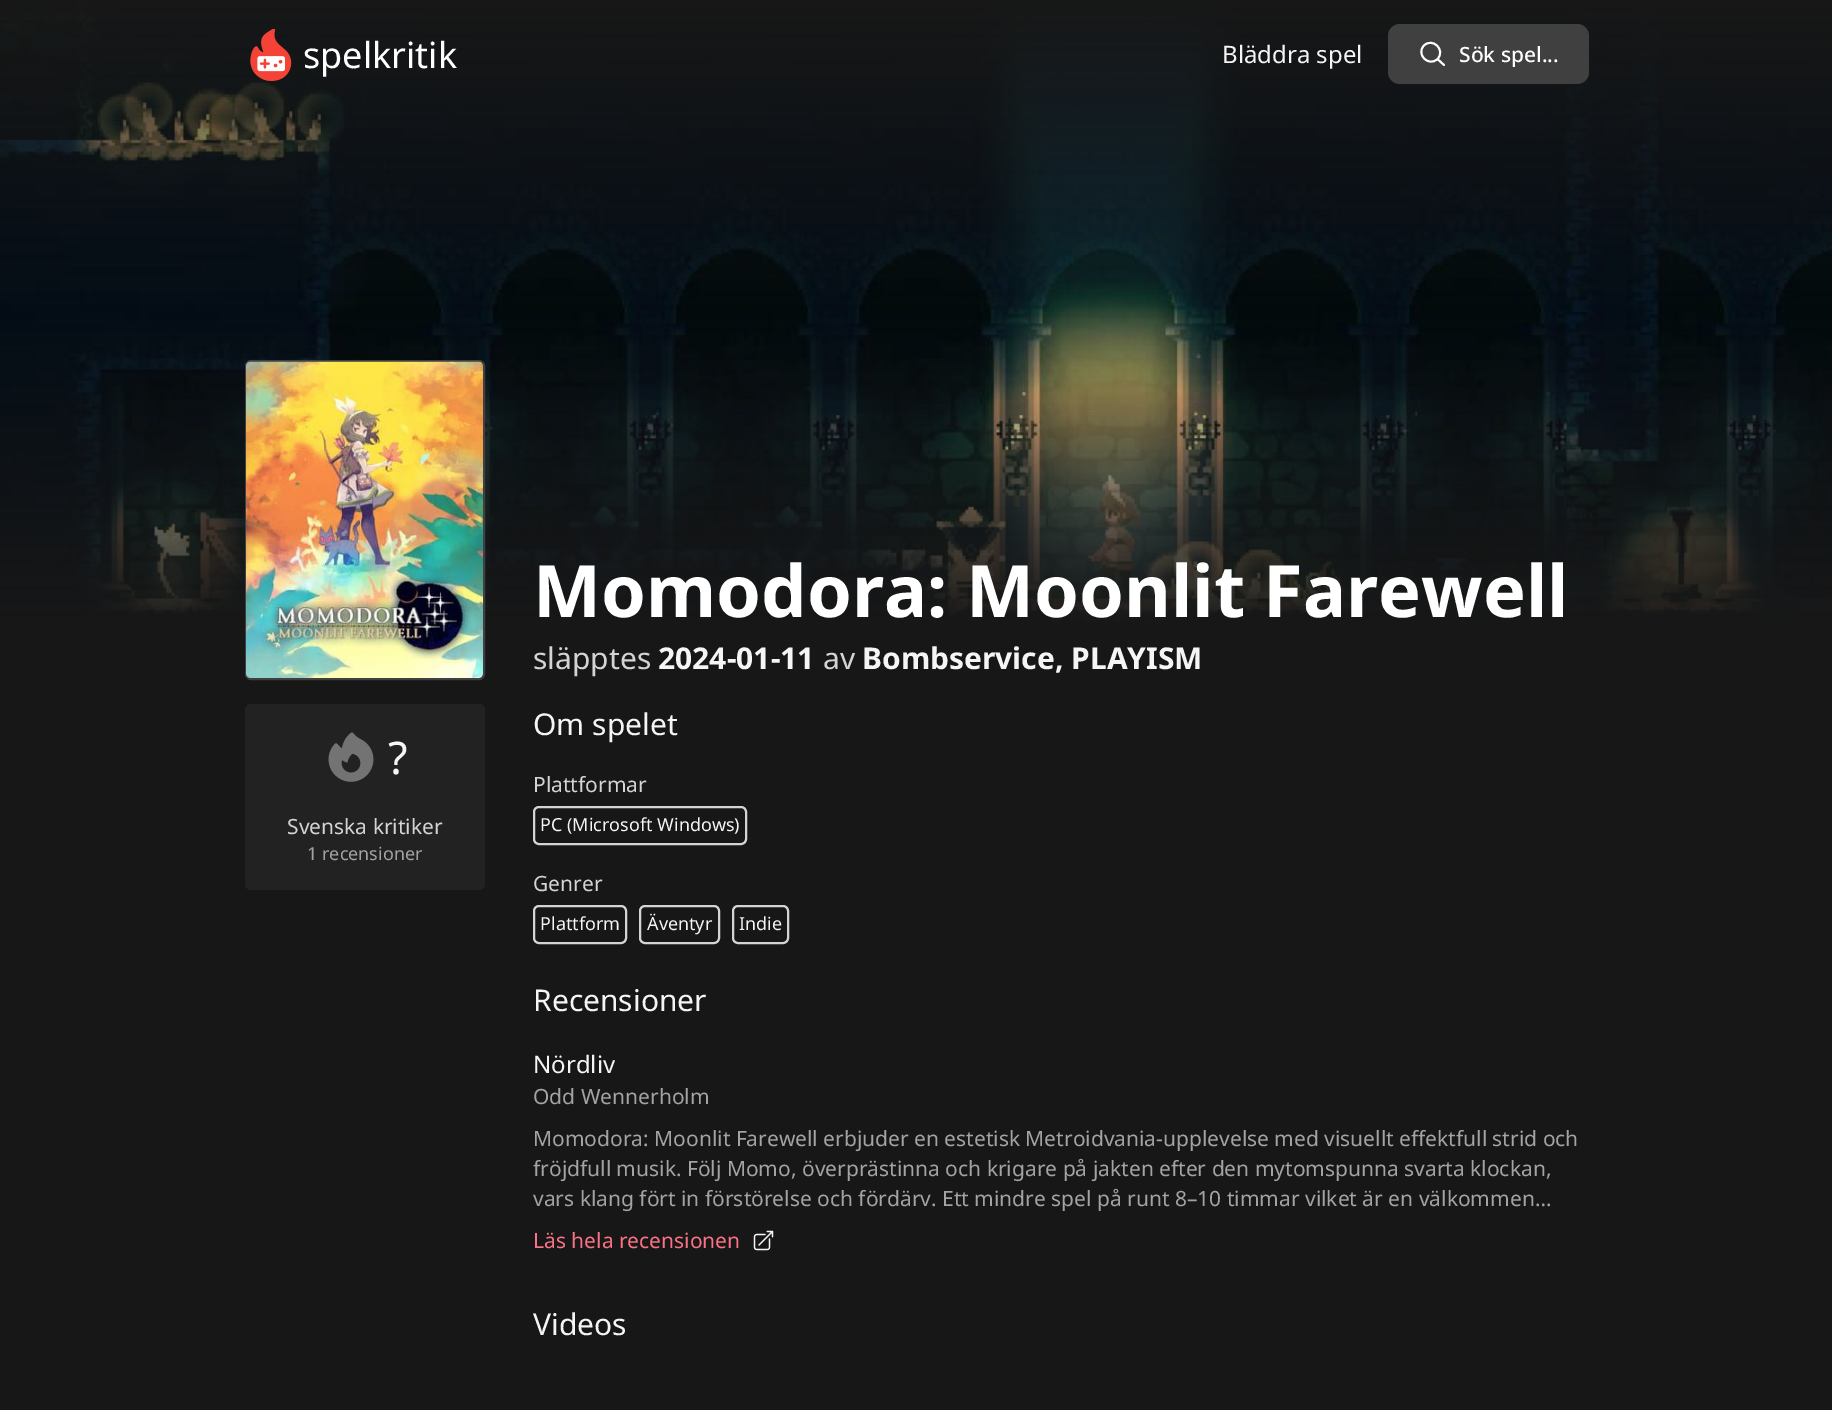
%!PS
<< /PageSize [1832 1410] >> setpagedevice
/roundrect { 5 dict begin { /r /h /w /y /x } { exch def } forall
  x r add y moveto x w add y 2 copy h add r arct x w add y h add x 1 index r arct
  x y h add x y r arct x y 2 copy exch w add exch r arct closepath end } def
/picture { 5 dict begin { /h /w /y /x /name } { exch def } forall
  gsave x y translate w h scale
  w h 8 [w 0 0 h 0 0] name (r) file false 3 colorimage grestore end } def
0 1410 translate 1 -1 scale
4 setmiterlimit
0.09 setgray
0 0 1832 1410 rectfill
(img2.rgb) 0 0 1832 624 picture
(img1.rgb) 250 29 42 52 picture
/NotoSans-Regular [36 0 0 -36 0 0] selectfont
1 setgray
303 68 moveto (spelkritik) show
/NotoSans-Regular [24 0 0 -24 0 0] selectfont
0.961 setgray
1222 63 moveto (Bläddra spel) show
0.251 setgray
1388 24 201 60 12 roundrect fill
1 setgray
1.9 setlinewidth
1 setlinecap
1 setlinejoin
newpath 1444 65 moveto 1437.5 59 lineto 1437.5 59 moveto 1446 50 1432.5 37 1424 45.5 curveto 1415.5 54 1428.5 67.5 1437.5 59 curveto closepath stroke
/NotoSans-Medium [21 0 0 -21 0 0] selectfont
1459 62 moveto (Sök spel...) show
0.251 setgray
2 setlinewidth
0 setlinecap
0 setlinejoin
246 361 238 318 5 roundrect stroke
(img3.rgb) 246 361 237 317 picture
/NotoSans-Bold [72 0 0 -72 0 0] selectfont
1 setgray
533 617 moveto (Momodora: Moonlit Farewell) show
/NotoSans-Regular [30 0 0 -30 0 0] selectfont
0.831 setgray
533 669 moveto (släpptes) show
/NotoSans-Bold [30 0 0 -30 0 0] selectfont
0.961 setgray
658 669 moveto (2024-01-11) show
/NotoSans-Regular [30 0 0 -30 0 0] selectfont
0.831 setgray
823 669 moveto (av) show
/NotoSans-Bold [30 0 0 -30 0 0] selectfont
0.961 setgray
862 669 moveto (Bombservice, PLAYISM) show
0.133 setgray
245 704 240 186 6 roundrect fill
(img4.rgb) 328 732 46 50 picture
/NotoSans-Regular [45 0 0 -45 0 0] selectfont
0.961 setgray
388 774 moveto (?) show
/NotoSans-Regular [21 0 0 -21 0 0] selectfont
0.831 setgray
287 834 moveto (Svenska kritiker) show
/NotoSans-Regular [18 0 0 -18 0 0] selectfont
0.639 setgray
307 860 moveto (1 recensioner) show
/NotoSans-Regular [30 0 0 -30 0 0] selectfont
0.961 setgray
533 735 moveto (Om spelet) show
/NotoSans-Regular [21 0 0 -21 0 0] selectfont
0.831 setgray
533 792 moveto (Plattformar) show
534 807 212 37 5 roundrect stroke
/NotoSans-Regular [18 0 0 -18 0 0] selectfont
0.961 setgray
540 831 moveto (PC \(Microsoft Windows\)) show
/NotoSans-Regular [21 0 0 -21 0 0] selectfont
0.831 setgray
533 891 moveto (Genrer) show
534 906 92 37 5 roundrect stroke
/NotoSans-Regular [18 0 0 -18 0 0] selectfont
0.961 setgray
540 930 moveto (Plattform) show
0.831 setgray
640 906 79 37 5 roundrect stroke
0.961 setgray
647 930 moveto (Äventyr) show
0.831 setgray
733 906 55 37 5 roundrect stroke
0.961 setgray
739 930 moveto (Indie) show
/NotoSans-Regular [30 0 0 -30 0 0] selectfont
533 1011 moveto (Recensioner) show
/NotoSans-Regular [24 0 0 -24 0 0] selectfont
533 1073 moveto (Nördliv) show
/NotoSans-Regular [21 0 0 -21 0 0] selectfont
0.639 setgray
533 1104 moveto (Odd Wennerholm) show
533 1146 moveto (Momodora: Moonlit Farewell erbjuder en estetisk Metroidvania-upplevelse med visuellt effektfull strid och) show
533 1176 moveto (fröjdfull musik. Följ Momo, överprästinna och krigare på jakten efter den mytomspunna svarta klockan,) show
533 1206 moveto (vars klang fört in förstörelse och fördärv. Ett mindre spel på runt 8–10 timmar vilket är en välkommen…) show
0.984 0.443 0.522 setrgbcolor
533 1248 moveto (Läs hela recensionen) show
(img5.rgb) 753 1230 21 21 picture
/NotoSans-Regular [30 0 0 -30 0 0] selectfont
0.961 setgray
533 1335 moveto (Videos) show
showpage
